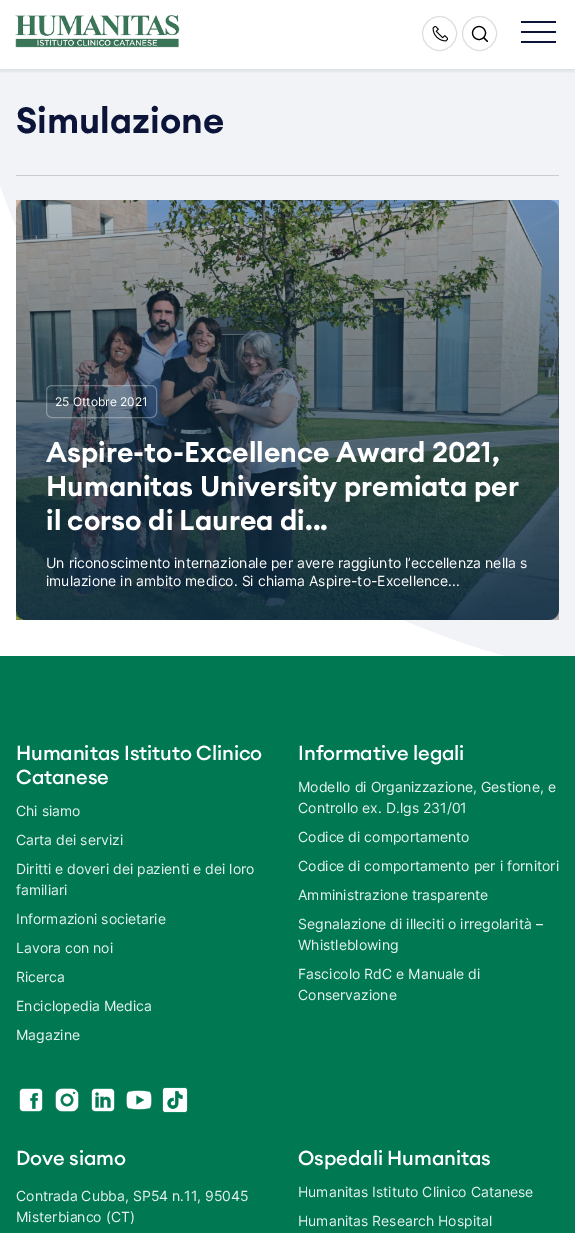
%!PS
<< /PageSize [575 1233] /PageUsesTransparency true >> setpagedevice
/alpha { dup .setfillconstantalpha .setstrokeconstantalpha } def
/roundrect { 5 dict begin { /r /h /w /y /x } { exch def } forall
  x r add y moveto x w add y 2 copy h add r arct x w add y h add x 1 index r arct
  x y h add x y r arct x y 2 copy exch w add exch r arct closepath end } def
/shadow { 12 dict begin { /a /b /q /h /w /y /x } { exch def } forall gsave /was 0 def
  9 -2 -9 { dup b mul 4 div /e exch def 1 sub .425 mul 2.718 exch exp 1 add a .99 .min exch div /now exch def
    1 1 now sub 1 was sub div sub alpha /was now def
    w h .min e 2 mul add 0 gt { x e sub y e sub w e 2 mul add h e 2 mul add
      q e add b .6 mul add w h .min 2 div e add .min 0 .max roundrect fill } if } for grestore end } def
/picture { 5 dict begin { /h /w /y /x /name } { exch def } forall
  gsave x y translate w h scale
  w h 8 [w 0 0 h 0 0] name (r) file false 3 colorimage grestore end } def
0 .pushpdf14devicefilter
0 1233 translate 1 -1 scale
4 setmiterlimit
1 setgray
0 0 575 1233 rectfill
(img3.rgb) 0 69 575 587 picture
gsave
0 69 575 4 rectclip
0.047 0.071 0.176 setrgbcolor
0 2 575 69 0 2 0.1 shadow
grestore
(img1.rgb) 15 15 165 33 picture
0.871 setgray
newpath 439.5 33.5 17 0 360 arc closepath stroke
(img2.rgb) 432 26 16 16 picture
newpath 479.5 33.5 17 0 360 arc closepath stroke
0 setgray
1.1 setlinewidth
newpath 479 33 6.5 0 360 arc closepath stroke
1 setlinecap
1 setlinejoin
newpath 487.5 41.5 moveto 483.5 37.5 lineto stroke
0.047 0.078 0.227 setrgbcolor
521 21 35 2 rectfill
521 31 35 2 rectfill
521 41 35 2 rectfill
/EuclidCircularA-SemiBold [36 0 0 -36 0 0] selectfont
16 133 moveto (Simulazione) show
0.8 setgray
16 175 543 1 rectfill
(img4.rgb) 16 200 543 420 picture
0.3 alpha
1 setgray
1 setlinewidth
0 setlinecap
0 setlinejoin
46.5 385.5 110 32 5.5 roundrect stroke
/Inter-Regular [12 0 0 -12 0 0] selectfont
1 alpha
55 406 moveto (25 Ottobre 2021) show
/EuclidCircularA-SemiBold [28 0 0 -28 0 0] selectfont
46 462 moveto (Aspire-to-Excellence Award 2021,) show
46 496 moveto (Humanitas University premiata per) show
46 530 moveto (il corso di Laurea di...) show
/Inter-Regular [14 0 0 -14 0 0] selectfont
46 568 moveto (Un riconoscimento internazionale per avere raggiunto l’eccellenza nella s) show
46 586 moveto (imulazione in ambito medico. Si chiama Aspire-to-Excellence...) show
0 0.475 0.325 setrgbcolor
0 656 575 577 rectfill
/EuclidCircularA-Medium [20 0 0 -20 0 0] selectfont
1 setgray
16 760 moveto -0.1 0 (Humanitas Istituto Clinico) ashow
16 784 moveto -0.1 0 (Catanese) ashow
/Inter-Regular [14 0 0 -14 0 0] selectfont
0.902 0.949 0.933 setrgbcolor
16 816 moveto (Chi siamo) show
16 845 moveto (Carta dei servizi) show
16 874 moveto (Diritti e doveri dei pazienti e dei loro) show
16 895 moveto (familiari) show
16 924 moveto (Informazioni societarie) show
16 953 moveto (Lavora con noi) show
16 982 moveto (Ricerca) show
16 1011 moveto (Enciclopedia Medica) show
16 1040 moveto (Magazine) show
(img5.rgb) 19 1088 24 24 picture
(img6.rgb) 55 1088 24 24 picture
(img7.rgb) 91 1088 24 24 picture
(img8.rgb) 126 1090 26 20 picture
(img9.rgb) 162 1087 26 26 picture
/EuclidCircularA-Medium [20 0 0 -20 0 0] selectfont
1 setgray
298 760 moveto -0.1 0 (Informative legali) ashow
/Inter-Regular [14 0 0 -14 0 0] selectfont
0.902 0.949 0.933 setrgbcolor
298 792 moveto (Modello di Organizzazione, Gestione, e) show
298 813 moveto (Controllo ex. D.lgs 231/01) show
298 842 moveto (Codice di comportamento) show
298 871 moveto (Codice di comportamento per i fornitori) show
298 900 moveto (Amministrazione trasparente) show
298 929 moveto (Segnalazione di illeciti o irregolarità –) show
298 950 moveto (Whistleblowing) show
298 979 moveto (Fascicolo RdC e Manuale di) show
298 1000 moveto (Conservazione) show
/EuclidCircularA-Medium [20 0 0 -20 0 0] selectfont
1 setgray
16 1165 moveto -0.1 0 (Dove siamo) ashow
/Inter-Regular [14 0 0 -14 0 0] selectfont
0.902 0.949 0.933 setrgbcolor
16 1201 moveto (Contrada Cubba, SP54 n.11, 95045) show
16 1222 moveto (Misterbianco \(CT\)) show
/EuclidCircularA-Medium [20 0 0 -20 0 0] selectfont
1 setgray
298 1165 moveto -0.1 0 (Ospedali Humanitas) ashow
/Inter-Regular [14 0 0 -14 0 0] selectfont
0.902 0.949 0.933 setrgbcolor
298 1197 moveto (Humanitas Istituto Clinico Catanese) show
298 1226 moveto (Humanitas Research Hospital) show
.poppdf14devicefilter showpage
